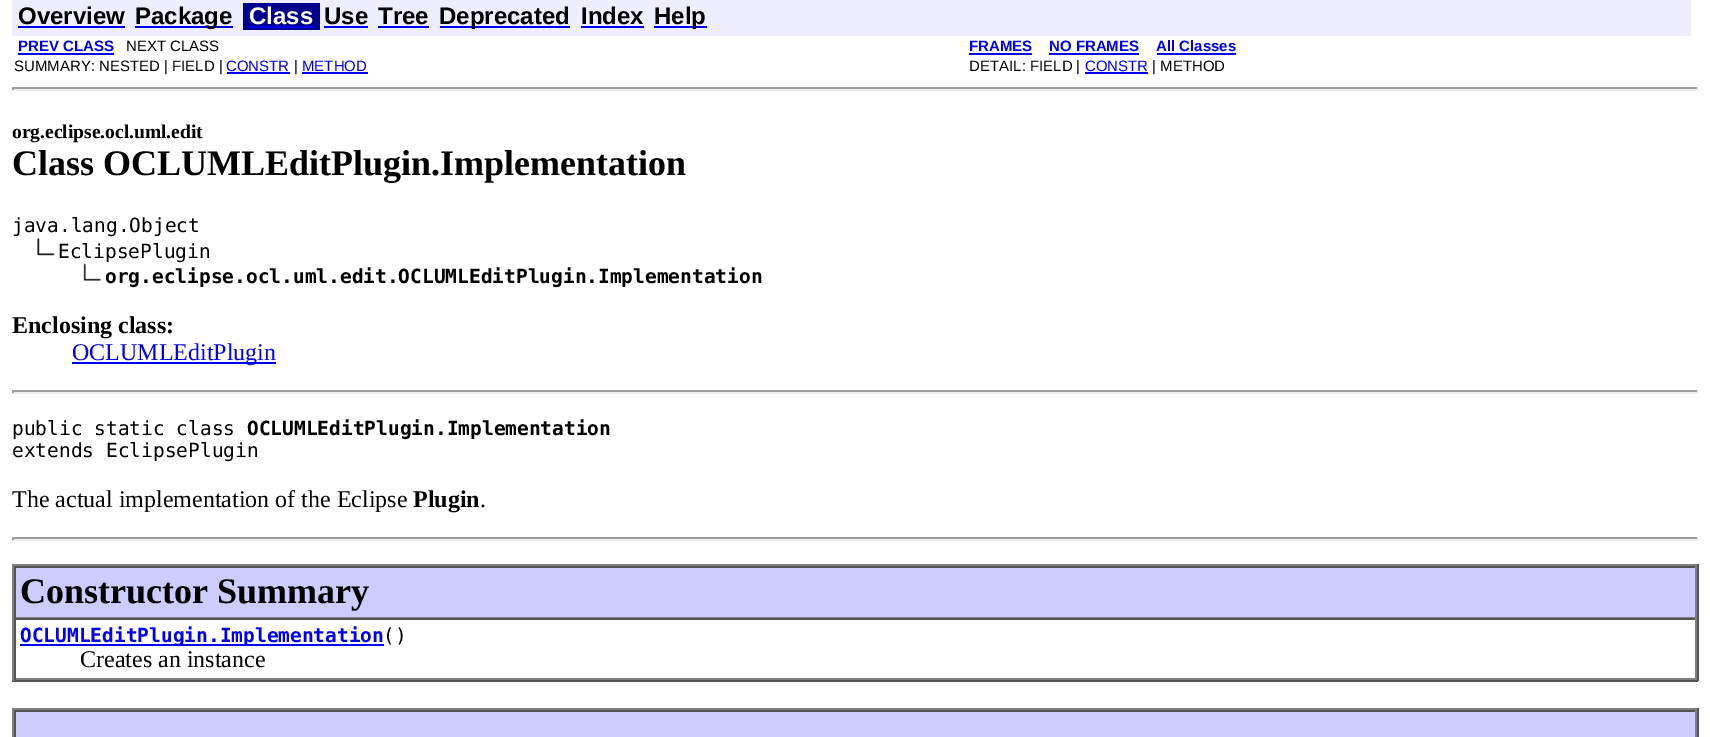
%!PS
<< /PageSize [1710 737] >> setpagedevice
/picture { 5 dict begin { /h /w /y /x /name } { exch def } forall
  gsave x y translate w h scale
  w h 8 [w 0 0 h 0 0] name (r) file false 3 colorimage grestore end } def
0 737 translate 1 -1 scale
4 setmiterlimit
1 setgray
0 0 1710 737 rectfill
0.933 0.933 1 setrgbcolor
12 0 1679 36 rectfill
/LiberationSans-Bold [24 0 0 -24 0 0] selectfont
0 setgray
18 24 moveto (Overview) show
0 0 0.933 setrgbcolor
18 26 107 2 rectfill
135 26 98 2 rectfill
0 setgray
135 24 moveto (Package) show
0 0 0.545 setrgbcolor
243 3 77 27 rectfill
1 setgray
249 24 moveto (Class) show
0 0 0.933 setrgbcolor
249 26 65 2 rectfill
0 setgray
324 24 moveto (Use) show
0 0 0.933 setrgbcolor
324 26 44 2 rectfill
0 setgray
378 24 moveto (Tree) show
0 0 0.933 setrgbcolor
378 26 51 2 rectfill
440 26 130 2 rectfill
0 setgray
439 24 moveto (Deprecated) show
581 24 moveto (Index) show
0 0 0.933 setrgbcolor
581 26 63 2 rectfill
654 26 53 2 rectfill
0 setgray
654 24 moveto (Help) show
/LiberationSans-Bold [15 0 0 -15 0 0] selectfont
0 0 0.933 setrgbcolor
18 51 moveto (PREV CLASS) show
18 53 96 2 rectfill
/LiberationSans-Regular [15 0 0 -15 0 0] selectfont
0 setgray
126 51 moveto (NEXT CLASS) show
/LiberationSans-Bold [15 0 0 -15 0 0] selectfont
0 0 0.933 setrgbcolor
969 51 moveto (FRAMES) show
969 53 63 2 rectfill
1049 51 moveto (NO FRAMES) show
1049 53 90 2 rectfill
1156 51 moveto (All Classes) show
1157 53 79 2 rectfill
/LiberationSans-Regular [15 0 0 -15 0 0] selectfont
0 setgray
14 71 moveto (SUMMARY: NESTED | FIELD |) show
0 0 0.933 setrgbcolor
226 71 moveto (CONSTR) show
227 72 63 2 rectfill
0 setgray
294 71 moveto (|) show
0 0 0.933 setrgbcolor
302 71 moveto (METHOD) show
302 72 66 2 rectfill
0 setgray
969 71 moveto (DETAIL: FIELD |) show
0 0 0.933 setrgbcolor
1085 71 moveto (CONSTR) show
1085 72 63 2 rectfill
0 setgray
1152 71 moveto (| METHOD) show
0.624 setgray
12 87 1686 2 rectfill
0.933 setgray
1697 87 2 3 rectfill
12 89 1686 2 rectfill
0.624 setgray
12 87 2 3 rectfill
/LiberationSerif-Bold [19.5 0 0 -19.5 0 0] selectfont
0 setgray
12 138 moveto (org.eclipse.ocl.uml.edit) show
/LiberationSerif-Bold [36 0 0 -36 0 0] selectfont
12 175 moveto (Class OCLUMLEditPlugin.Implementation) show
/DejaVuSansMono-Regular [19.5 0 0 -19.5 0 0] selectfont
12 232 moveto (java.lang.Object) show
(img1.rgb) 37 238 18 18 picture
58 258 moveto (EclipsePlugin) show
(img2.rgb) 83 263 18 18 picture
/DejaVuSansMono-Bold [19.5 0 0 -19.5 0 0] selectfont
105 283 moveto (org.eclipse.ocl.uml.edit.OCLUMLEditPlugin.Implementation) show
/LiberationSerif-Bold [24 0 0 -24 0 0] selectfont
12 333 moveto (Enclosing class:) show
0 0 0.933 setrgbcolor
72 362 204 2 rectfill
/LiberationSerif-Regular [24 0 0 -24 0 0] selectfont
72 360 moveto (OCLUMLEditPlugin) show
0.624 setgray
12 390 1686 2 rectfill
0.933 setgray
1697 390 2 3 rectfill
12 392 1686 2 rectfill
0.624 setgray
12 390 2 3 rectfill
/DejaVuSansMono-Regular [19.5 0 0 -19.5 0 0] selectfont
0 setgray
12 435 moveto (public static class) show
/DejaVuSansMono-Bold [19.5 0 0 -19.5 0 0] selectfont
247 435 moveto (OCLUMLEditPlugin.Implementation) show
/DejaVuSansMono-Regular [19.5 0 0 -19.5 0 0] selectfont
12 457 moveto (extends EclipsePlugin) show
/LiberationSerif-Regular [24 0 0 -24 0 0] selectfont
12 507 moveto (The actual implementation of the Eclipse) show
/LiberationSerif-Bold [24 0 0 -24 0 0] selectfont
413 507 moveto (Plugin) show
/LiberationSerif-Regular [24 0 0 -24 0 0] selectfont
480 507 moveto (.) show
0.624 setgray
12 537 1686 2 rectfill
0.933 setgray
1697 537 2 3 rectfill
12 539 1686 2 rectfill
0.624 setgray
12 537 2 3 rectfill
0.502 setgray
12 564 1686 2 rectfill
0.333 setgray
1697 564 2 117 rectfill
12 680 1686 2 rectfill
0.502 setgray
12 564 2 117 rectfill
0.8 0.8 1 setrgbcolor
16 568 1679 49 rectfill
0.333 setgray
14 566 1683 2 rectfill
0.502 setgray
1695 566 2 52 rectfill
14 617 1683 1 rectfill
0.333 setgray
14 566 2 52 rectfill
/LiberationSerif-Bold [36 0 0 -36 0 0] selectfont
0 setgray
20 603 moveto (Constructor Summary) show
0.333 setgray
14 618 1683 2 rectfill
0.502 setgray
1695 618 2 62 rectfill
14 678 1683 2 rectfill
0.333 setgray
14 618 2 62 rectfill
0 0 0.933 setrgbcolor
20 644 364 2 rectfill
/DejaVuSansMono-Bold [19.5 0 0 -19.5 0 0] selectfont
20 642 moveto (OCLUMLEditPlugin.Implementation) show
/DejaVuSansMono-Regular [19.5 0 0 -19.5 0 0] selectfont
0 setgray
383 642 moveto (\(\)) show
/LiberationSerif-Regular [24 0 0 -24 0 0] selectfont
80 667 moveto (Creates an instance) show
0.502 setgray
12 708 1686 2 rectfill
0.333 setgray
1697 708 2 29 rectfill
0.502 setgray
12 708 2 29 rectfill
0.8 0.8 1 setrgbcolor
16 712 1679 25 rectfill
0.333 setgray
14 710 1683 2 rectfill
0.502 setgray
1695 710 2 27 rectfill
0.333 setgray
14 710 2 27 rectfill
showpage
